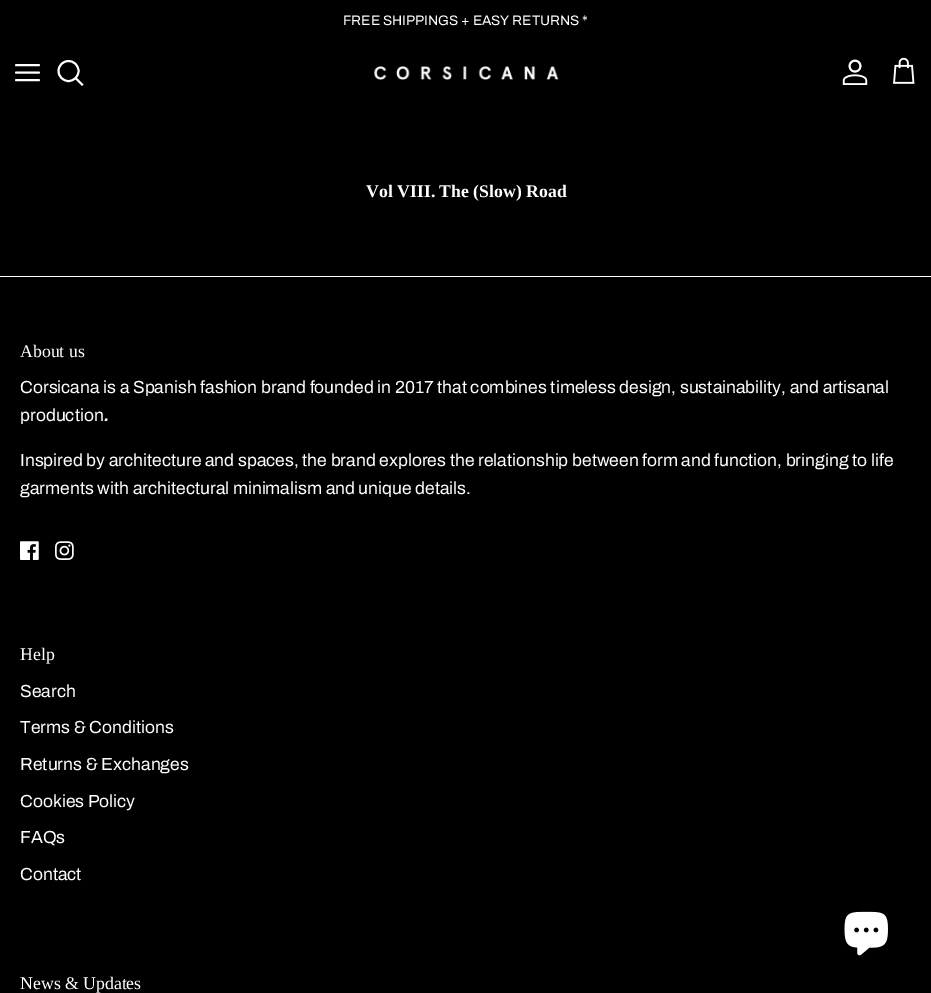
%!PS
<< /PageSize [931 993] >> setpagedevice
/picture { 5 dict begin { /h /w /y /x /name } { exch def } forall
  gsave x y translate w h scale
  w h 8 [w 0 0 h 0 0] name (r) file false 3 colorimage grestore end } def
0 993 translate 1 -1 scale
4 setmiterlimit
0 setgray
0 0 931 993 rectfill
/Archivo-Regular [13.75 0 0 -13.75 0 0] selectfont
1 setgray
343 25 moveto (FREE SHIPPINGS + EASY RETURNS *) show
1.9 setlinewidth
1 setlinecap
1 setlinejoin
newpath 16 72.5 moveto 39 72.5 lineto 16 65 moveto 39 65 lineto 16 80 moveto 39 80 lineto stroke
0 setlinecap
0 setlinejoin
newpath 68.5 71 10 0 360 arc closepath stroke
2 setlinecap
newpath 76 78.5 moveto 82 84.5 lineto stroke
(img1.rgb) 374 66 185 14 picture
(img2.rgb) 842 59 26 26 picture
(img3.rgb) 893 57 22 27 picture
/LiberationSerif-Bold [17.75 0 0 -17.75 0 0] selectfont
366 197 moveto (Vol VIII. The \(Slow\) Road) show
0 276 931 1 rectfill
/LiberationSerif-Regular [17.75 0 0 -17.75 0 0] selectfont
20 357 moveto (About us) show
/Archivo-Regular [17.5 0 0 -17.5 0 0] selectfont
20 393 moveto (Corsicana is a Spanish fashion brand founded in 2017 that combines timeless design, sustainability, and artisanal) show
20 421 moveto (production) show
/Archivo-BoldItalic [17.5 0 0 -17.5 0 0] selectfont
104 421 moveto (.) show
/Archivo-Regular [17.5 0 0 -17.5 0 0] selectfont
20 466 moveto (Inspired by architecture and spaces, the brand explores the relationship between form and function, bringing to life) show
20 494 moveto (garments with architectural minimalism and unique details.) show
(img4.rgb) 20 541 19 19 picture
(img5.rgb) 55 541 19 19 picture
/LiberationSerif-Regular [17.75 0 0 -17.75 0 0] selectfont
20 660 moveto (Help) show
/Archivo-Regular [17.5 0 0 -17.5 0 0] selectfont
20 697 moveto (Search) show
20 733 moveto (Terms & Conditions) show
20 770 moveto (Returns & Exchanges) show
20 807 moveto (Cookies Policy) show
20 843 moveto (FAQs) show
20 880 moveto (Contact) show
/LiberationSerif-Regular [17.75 0 0 -17.75 0 0] selectfont
20 989 moveto (News & Updates) show
(img6.rgb) 844 911 44 45 picture
showpage
